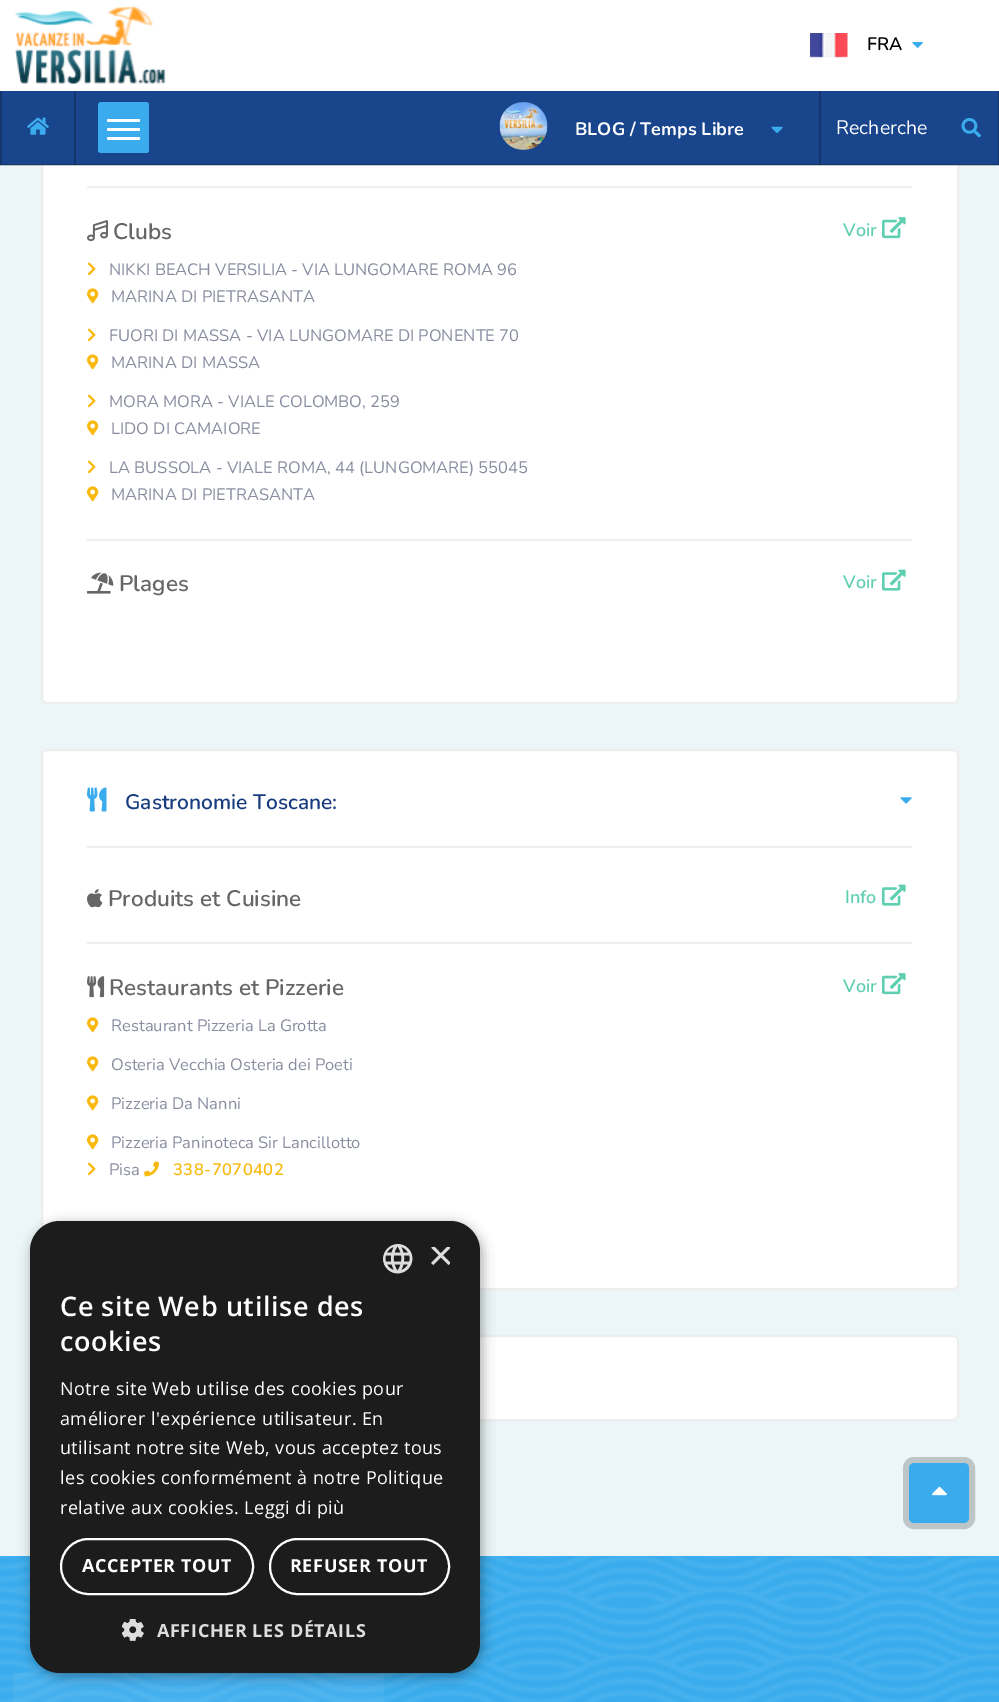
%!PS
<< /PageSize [999 1702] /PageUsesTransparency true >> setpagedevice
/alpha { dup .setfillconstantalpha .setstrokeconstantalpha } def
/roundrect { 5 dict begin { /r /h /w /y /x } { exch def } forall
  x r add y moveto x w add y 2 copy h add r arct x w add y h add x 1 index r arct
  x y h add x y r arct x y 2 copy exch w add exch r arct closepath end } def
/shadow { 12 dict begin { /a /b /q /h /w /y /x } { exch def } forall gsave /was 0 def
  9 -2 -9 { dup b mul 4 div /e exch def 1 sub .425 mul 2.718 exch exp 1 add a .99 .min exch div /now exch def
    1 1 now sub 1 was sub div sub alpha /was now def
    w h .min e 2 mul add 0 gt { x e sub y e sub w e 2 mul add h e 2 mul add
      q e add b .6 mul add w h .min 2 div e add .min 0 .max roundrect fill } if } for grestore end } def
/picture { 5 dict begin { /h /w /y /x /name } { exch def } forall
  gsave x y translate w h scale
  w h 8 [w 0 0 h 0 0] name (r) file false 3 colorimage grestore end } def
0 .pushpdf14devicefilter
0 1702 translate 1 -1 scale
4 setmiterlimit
0.227 0.675 0.929 setrgbcolor
0 0 999 1702 rectfill
0.925 0.965 0.973 setrgbcolor
0 165 999 1391 rectfill
1 setgray
42 -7 916 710 5 roundrect gsave fill grestore
0.933 setgray
2 setlinewidth
stroke
0.094 0.271 0.545 setrgbcolor
0 91 999 74 rectfill
0.21 alpha
0 setgray
0 164 999 2 rectfill
74 90 2 75 rectfill
0 90 2 75 rectfill
998 90 1 75 rectfill
819 90 2 75 rectfill
1 alpha
1 setgray
0 0 999 91 rectfill
(img1.rgb) 15 6 151 78 picture
(img2.rgb) 810 33 38 25 picture
/Nunito-SemiBold [18 0 0 -18 0 0] selectfont
0 setgray
867 50 moveto (FRA) show
(img3.rgb) 912 42 11 6 picture
(img4.rgb) 27 117 22 18 picture
0.227 0.675 0.929 setrgbcolor
98 102 51 51 3 roundrect fill
1 setgray
107 119 33 3 1.5 roundrect fill
107 128 33 3 1.5 roundrect fill
107 137 33 3 1.5 roundrect fill
(img5.rgb) 499 102 49 48 picture
/Nunito-Bold [18 0 0 -18 0 0] selectfont
575 135 moveto (BLOG / Temps Libre) show
(img6.rgb) 771 126 12 8 picture
/Nunito-Regular [19.5 0 0 -19.5 0 0] selectfont
836 134 moveto (Recherche) show
(img7.rgb) 961 118 20 20 picture
0.933 setgray
87 186 825 2 rectfill
87 539 825 2 rectfill
(img8.rgb) 87 220 21 22 picture
/Nunito-SemiBold [22.5 0 0 -22.5 0 0] selectfont
0.4 setgray
113 239 moveto (Clubs) show
/Nunito-SemiBold [18 0 0 -18 0 0] selectfont
0.369 0.812 0.694 setrgbcolor
843 236 moveto (Voir) show
(img9.rgb) 882 217 24 22 picture
(img10.rgb) 87 262 9 14 picture
/Nunito-Regular [16.5 0 0 -16.5 0 0] selectfont
0.529 0.549 0.624 setrgbcolor
109 275 moveto (NIKKI BEACH VERSILIA - VIA LUNGOMARE ROMA 96) show
(img11.rgb) 87 288 12 16 picture
111 302 moveto (MARINA DI PIETRASANTA) show
(img10.rgb) 87 328 9 14 picture
109 341 moveto (FUORI DI MASSA - VIA LUNGOMARE DI PONENTE 70) show
(img11.rgb) 87 354 12 16 picture
111 368 moveto (MARINA DI MASSA) show
(img10.rgb) 87 394 9 14 picture
109 407 moveto (MORA MORA - VIALE COLOMBO, 259) show
(img11.rgb) 87 420 12 16 picture
111 434 moveto (LIDO DI CAMAIORE) show
(img10.rgb) 87 460 9 14 picture
109 473 moveto (LA BUSSOLA - VIALE ROMA, 44 \(LUNGOMARE\) 55045) show
(img11.rgb) 87 486 12 16 picture
111 500 moveto (MARINA DI PIETRASANTA) show
(img12.rgb) 87 572 27 22 picture
/Nunito-SemiBold [22.5 0 0 -22.5 0 0] selectfont
0.4 setgray
119 591 moveto (Plages) show
/Nunito-SemiBold [18 0 0 -18 0 0] selectfont
0.369 0.812 0.694 setrgbcolor
843 588 moveto (Voir) show
(img13.rgb) 882 569 24 22 picture
1 setgray
42 750 916 539 5 roundrect gsave fill grestore
0.933 setgray
stroke
87 846 825 2 rectfill
(img14.rgb) 87 787 20 25 picture
/Nunito-SemiBold [21 0 0 -21 0 0] selectfont
0.094 0.235 0.49 setrgbcolor
125 809 moveto (Gastronomie Toscane:) show
(img15.rgb) 900 797 12 7 picture
0.933 setgray
87 942 825 2 rectfill
(img16.rgb) 87 889 16 19 picture
/Nunito-SemiBold [22.5 0 0 -22.5 0 0] selectfont
0.4 setgray
108 906 moveto (Produits et Cuisine) show
/Nunito-SemiBold [18 0 0 -18 0 0] selectfont
0.369 0.812 0.694 setrgbcolor
845 903 moveto (Info) show
(img13.rgb) 882 884 24 22 picture
(img17.rgb) 87 976 18 22 picture
/Nunito-SemiBold [22.5 0 0 -22.5 0 0] selectfont
0.4 setgray
109 995 moveto (Restaurants et Pizzerie) show
/Nunito-SemiBold [18 0 0 -18 0 0] selectfont
0.369 0.812 0.694 setrgbcolor
843 992 moveto (Voir) show
(img9.rgb) 882 973 24 22 picture
(img11.rgb) 87 1017 12 16 picture
/Nunito-Regular [16.5 0 0 -16.5 0 0] selectfont
0.529 0.549 0.624 setrgbcolor
111 1031 moveto (Restaurant Pizzeria La Grotta) show
(img11.rgb) 87 1056 12 16 picture
111 1070 moveto (Osteria Vecchia Osteria dei Poeti) show
(img11.rgb) 87 1095 12 16 picture
111 1109 moveto (Pizzeria Da Nanni) show
(img11.rgb) 87 1134 12 16 picture
111 1148 moveto (Pizzeria Paninoteca Sir Lancillotto) show
(img10.rgb) 87 1162 9 14 picture
109 1175 moveto (Pisa) show
(img18.rgb) 144 1161 15 16 picture
/Nunito-SemiBold [16.5 0 0 -16.5 0 0] selectfont
0.976 0.725 0.059 setrgbcolor
173 1175 moveto 0.45 0 (338-7070402) ashow
1 setgray
42 1336 916 84 5 roundrect gsave fill grestore
0.933 setgray
stroke
0.741 0.773 0.776 setrgbcolor
6 setlinewidth
906 1460 66 66 8 roundrect stroke
0.227 0.675 0.929 setrgbcolor
909 1463 60 60 5 roundrect fill
(img19.rgb) 932 1486 15 10 picture
(img20.rgb) 0 1556 999 146 picture
0.05 alpha
1 setgray
13 1673 371 29 rectfill
1 alpha
0 setgray
32 1224 450 452 30 6 0.35 shadow
0.11 setgray
30 1221 450 452 30 roundrect fill
(img21.rgb) 383 1244 30 30 picture
gsave
428 1247 22 22 rectclip
/LiberationSans-Regular [44 0 0 -44 0 0] selectfont
0.867 setgray
428 1270 moveto (×) show
grestore
/OpenSans-SemiBold [27 0 0 -27 0 0] selectfont
1 setgray
60 1316 moveto 0.6 0 (Ce site Web utilise des) ashow
60 1351 moveto 0.6 0 (cookies) ashow
/OpenSans-Regular [18 0 0 -18 0 0] selectfont
60 1395 moveto 0.45 0 (Notre site Web utilise des cookies pour) ashow
60 1425 moveto 0.45 0 (améliorer l'expérience utilisateur. En) ashow
60 1454 moveto 0.45 0 (utilisant notre site Web, vous acceptez tous) ashow
60 1484 moveto 0.45 0 (les cookies conformément à notre Politique) ashow
60 1514 moveto 0.45 0 (relative aux cookies. Leggi di più) ashow
2 setlinewidth
61 1539 192 55 27.5 roundrect stroke
/OpenSans-Bold [18 0 0 -18 0 0] selectfont
82 1572 moveto 0.6 0 (ACCEPTER TOUT) ashow
270 1539 179 55 27.5 roundrect stroke
290 1572 moveto 0.6 0 (REFUSER TOUT) ashow
(img22.rgb) 122 1619 22 22 picture
0.867 setgray
157 1637 moveto 0.6 0 (AFFICHER LES DÉTAILS) ashow
.poppdf14devicefilter showpage
